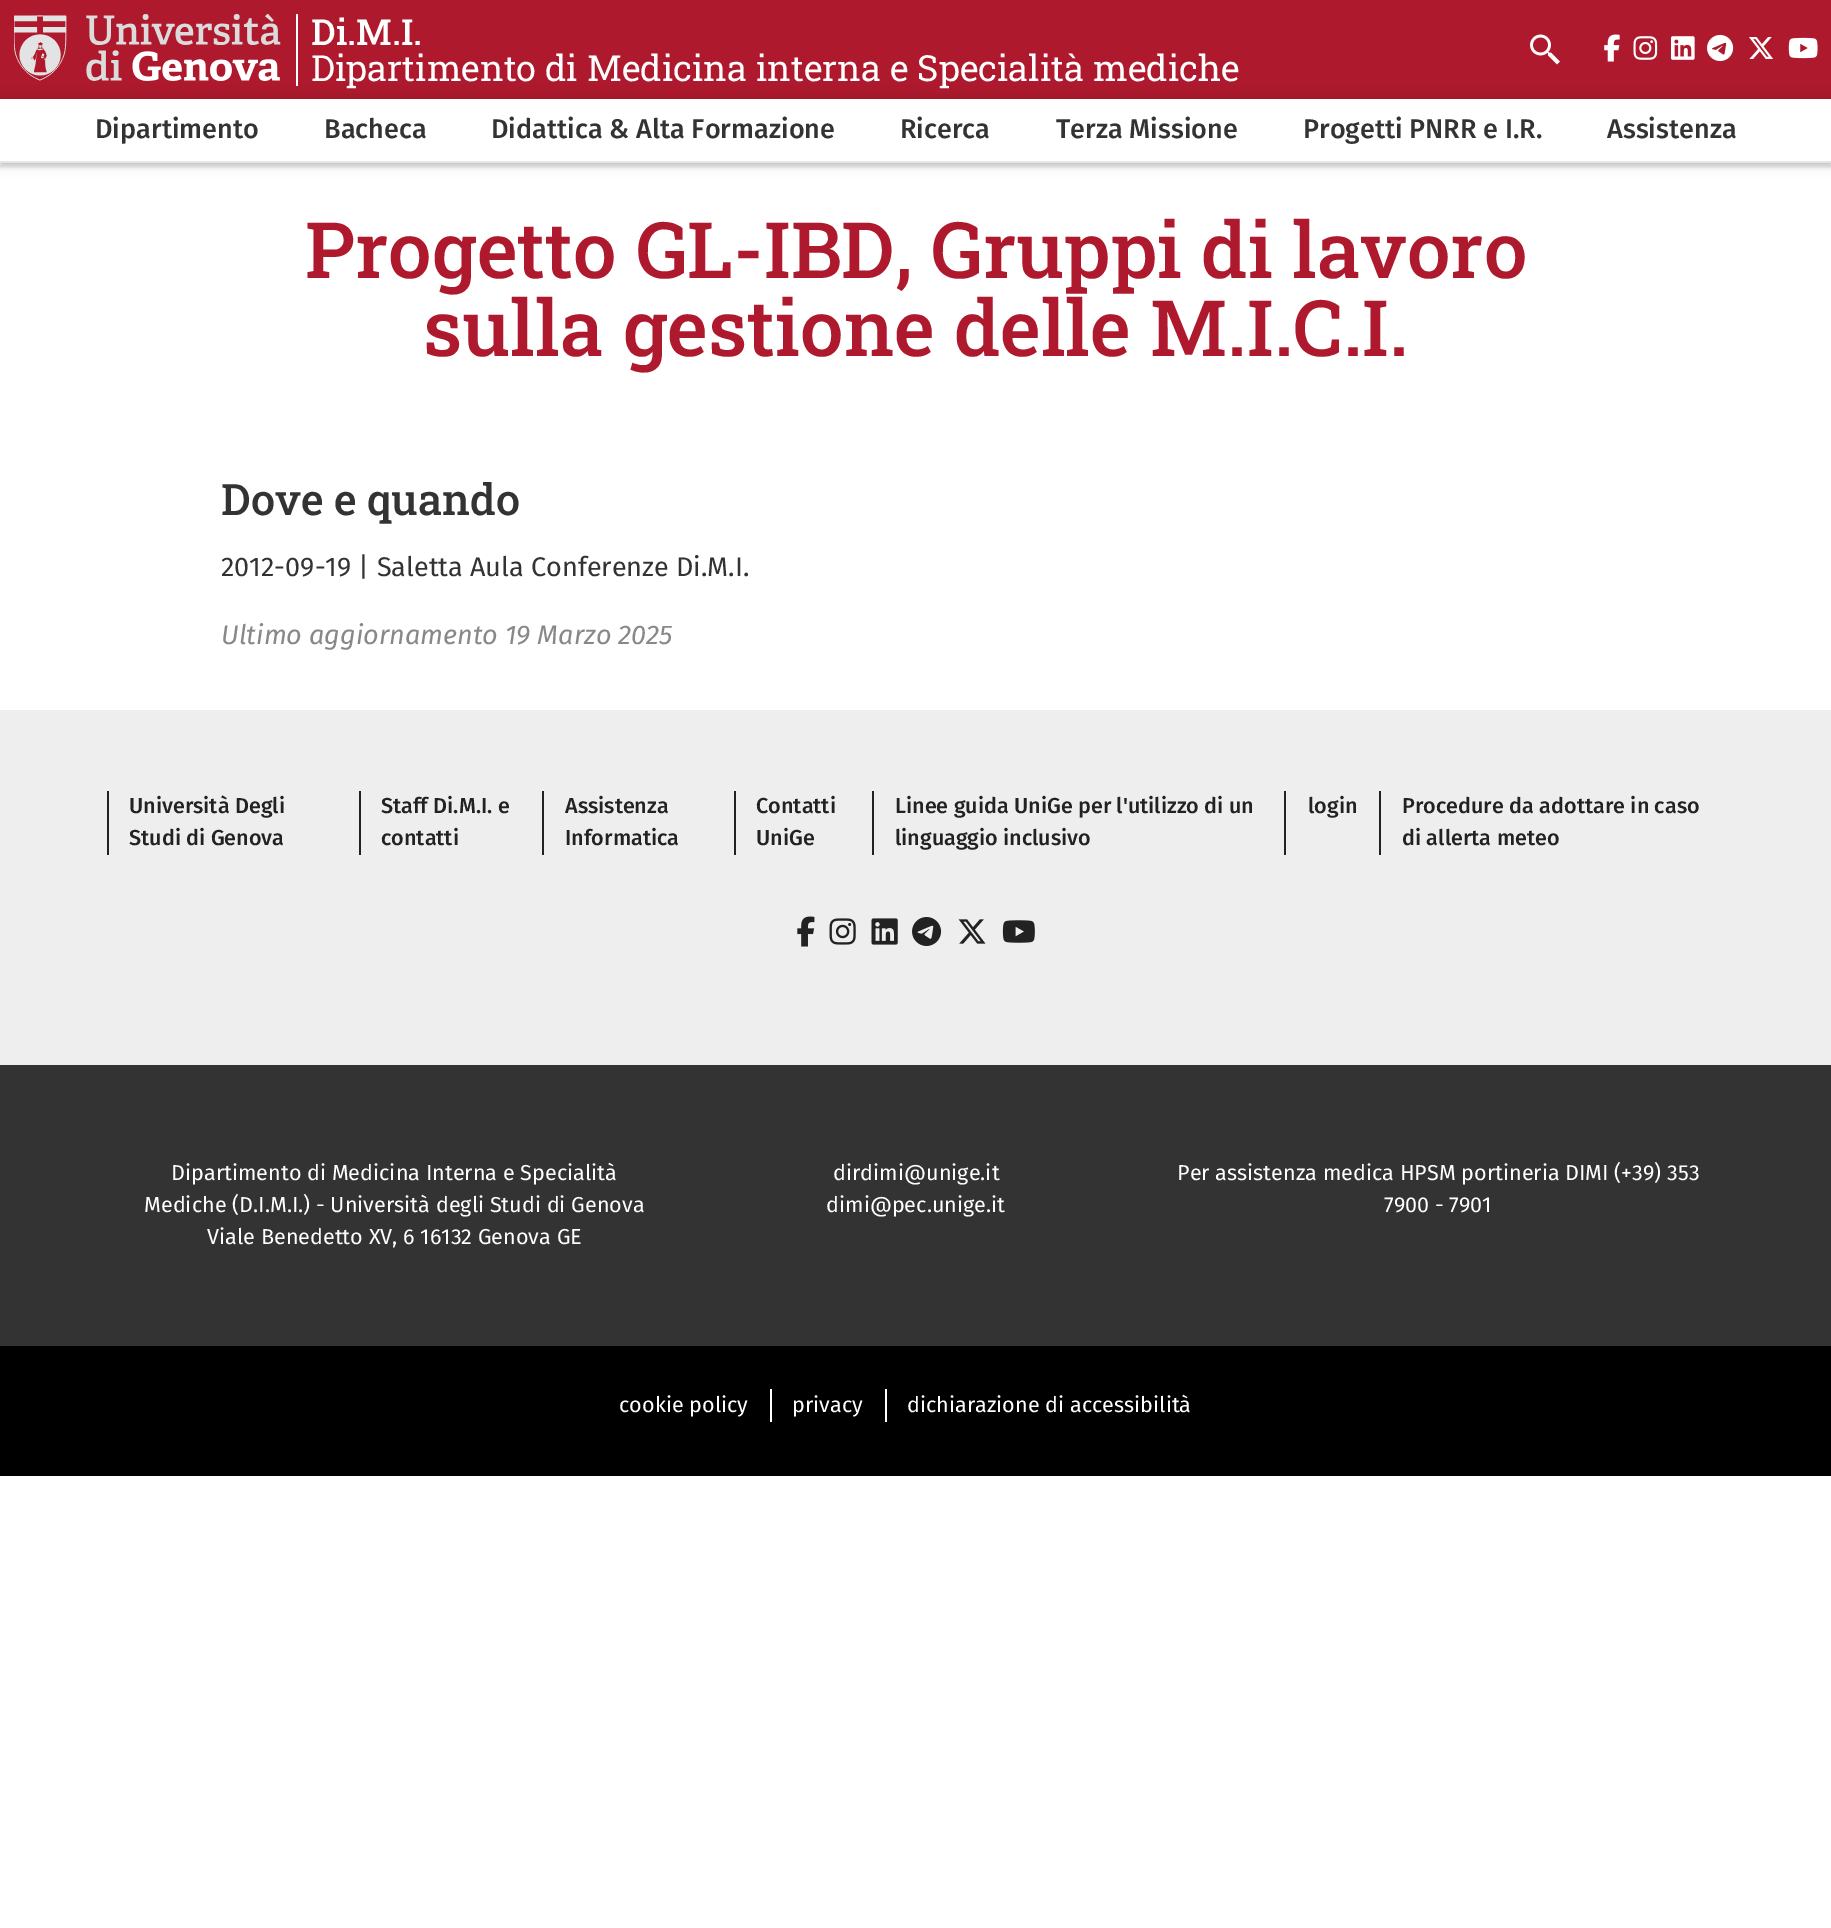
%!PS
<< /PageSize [1831 1928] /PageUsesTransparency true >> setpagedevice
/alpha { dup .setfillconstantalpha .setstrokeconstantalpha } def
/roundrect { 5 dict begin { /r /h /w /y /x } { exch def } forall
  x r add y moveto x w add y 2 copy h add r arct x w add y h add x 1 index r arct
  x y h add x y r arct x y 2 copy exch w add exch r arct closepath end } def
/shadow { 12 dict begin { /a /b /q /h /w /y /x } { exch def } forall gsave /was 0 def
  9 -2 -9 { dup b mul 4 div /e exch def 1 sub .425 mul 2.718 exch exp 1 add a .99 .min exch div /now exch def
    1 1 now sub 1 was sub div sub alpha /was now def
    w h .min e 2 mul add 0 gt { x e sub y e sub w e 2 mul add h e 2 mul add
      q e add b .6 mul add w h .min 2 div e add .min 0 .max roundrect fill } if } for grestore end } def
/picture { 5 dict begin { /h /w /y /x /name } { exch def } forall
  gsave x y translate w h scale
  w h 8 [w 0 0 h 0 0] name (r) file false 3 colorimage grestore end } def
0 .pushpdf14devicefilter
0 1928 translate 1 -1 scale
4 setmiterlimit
1 setgray
0 0 1831 1928 rectfill
0.682 0.098 0.176 setrgbcolor
0 0 1831 99 rectfill
(img1.rgb) 14 14 267 67 picture
1 setgray
296 14 2 72 rectfill
/RobotoSlab-Medium [36 0 0 -36 0 0] selectfont
311 45 moveto (Di.M.I.) show
/RobotoSlab-Regular [36 0 0 -36 0 0] selectfont
311 81 moveto (Dipartimento di Medicina interna e Specialità mediche) show
(img2.rgb) 1530 34 30 31 picture
(img3.rgb) 1604 34 16 28 picture
(img4.rgb) 1633 36 25 24 picture
(img5.rgb) 1671 36 24 24 picture
(img6.rgb) 1707 34 27 28 picture
(img7.rgb) 1749 37 25 22 picture
(img8.rgb) 1788 37 30 22 picture
0 setgray
0 104 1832 63 0 2 0.15 shadow
0 99 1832 63 0 7.5 0.15 shadow
1 setgray
0 99 1831 62 rectfill
0.902 setgray
0 161 1831 2 rectfill
/FiraSans-Medium [27 0 0 -27 0 0] selectfont
0.2 setgray
95 138 moveto (Dipartimento) show
324 138 moveto (Bacheca) show
491 138 moveto (Didattica & Alta Formazione) show
900 138 moveto (Ricerca) show
1056 138 moveto (Terza Missione) show
1303 138 moveto (Progetti PNRR e I.R.) show
1607 138 moveto (Assistenza) show
/RobotoSlab-Medium [77.9 0 0 -77.9 0 0] selectfont
0.682 0.098 0.176 setrgbcolor
305 278 moveto (Progetto GL-IBD, Gruppi di lavoro) show
423 356 moveto (sulla gestione delle M.I.C.I.) show
/RobotoSlab-Medium [43.25 0 0 -43.25 0 0] selectfont
0.2 setgray
221 515 moveto (Dove e quando) show
/FiraSans-Regular [27 0 0 -27 0 0] selectfont
221 576 moveto (2012-09-19 | Saletta Aula Conferenze Di.M.I.) show
/FiraSans-Italic [27 0 0 -27 0 0] selectfont
0.533 setgray
221 644 moveto (Ultimo aggiornamento 19 Marzo 2025) show
0.933 setgray
0 710 1831 355 rectfill
0.133 setgray
107 791 2 64 rectfill
/FiraSans-Medium [21.6 0 0 -21.6 0 0] selectfont
129 813 moveto (Università Degli) show
129 845 moveto (Studi di Genova) show
359 791 2 64 rectfill
381 813 moveto (Staff Di.M.I. e) show
381 845 moveto (contatti) show
542 791 2 64 rectfill
565 813 moveto (Assistenza) show
565 845 moveto (Informatica) show
734 791 2 64 rectfill
756 813 moveto (Contatti) show
756 845 moveto (UniGe) show
872 791 2 64 rectfill
895 813 moveto (Linee guida UniGe per l'utilizzo di un) show
895 845 moveto (linguaggio inclusivo) show
1284 791 2 64 rectfill
1308 813 moveto (login) show
1379 791 2 64 rectfill
1402 813 moveto (Procedure da adottare in caso) show
1402 845 moveto (di allerta meteo) show
(img9.rgb) 797 916 18 31 picture
(img10.rgb) 829 918 27 27 picture
(img11.rgb) 871 918 27 27 picture
(img12.rgb) 912 917 30 29 picture
(img13.rgb) 958 919 28 25 picture
(img14.rgb) 1002 920 33 23 picture
0.2 setgray
0 1065 1831 281 rectfill
/FiraSans-Regular [21.6 0 0 -21.6 0 0] selectfont
1 setgray
171 1180 moveto (Dipartimento di Medicina Interna e Specialità) show
144 1212 moveto (Mediche \(D.I.M.I.\) - Università degli Studi di Genova) show
207 1244 moveto (Viale Benedetto XV, 6 16132 Genova GE) show
833 1180 moveto (dirdimi@unige.it) show
826 1212 moveto (dimi@pec.unige.it) show
1177 1180 moveto (Per assistenza medica HPSM portineria DIMI \(+39\) 353) show
1384 1212 moveto (7900 - 7901) show
0 setgray
0 1346 1831 130 rectfill
1 setgray
619 1412 moveto (cookie policy) show
770 1389 2 33 rectfill
792 1412 moveto (privacy) show
885 1389 2 33 rectfill
907 1412 moveto (dichiarazione di accessibilità) show
.poppdf14devicefilter showpage
